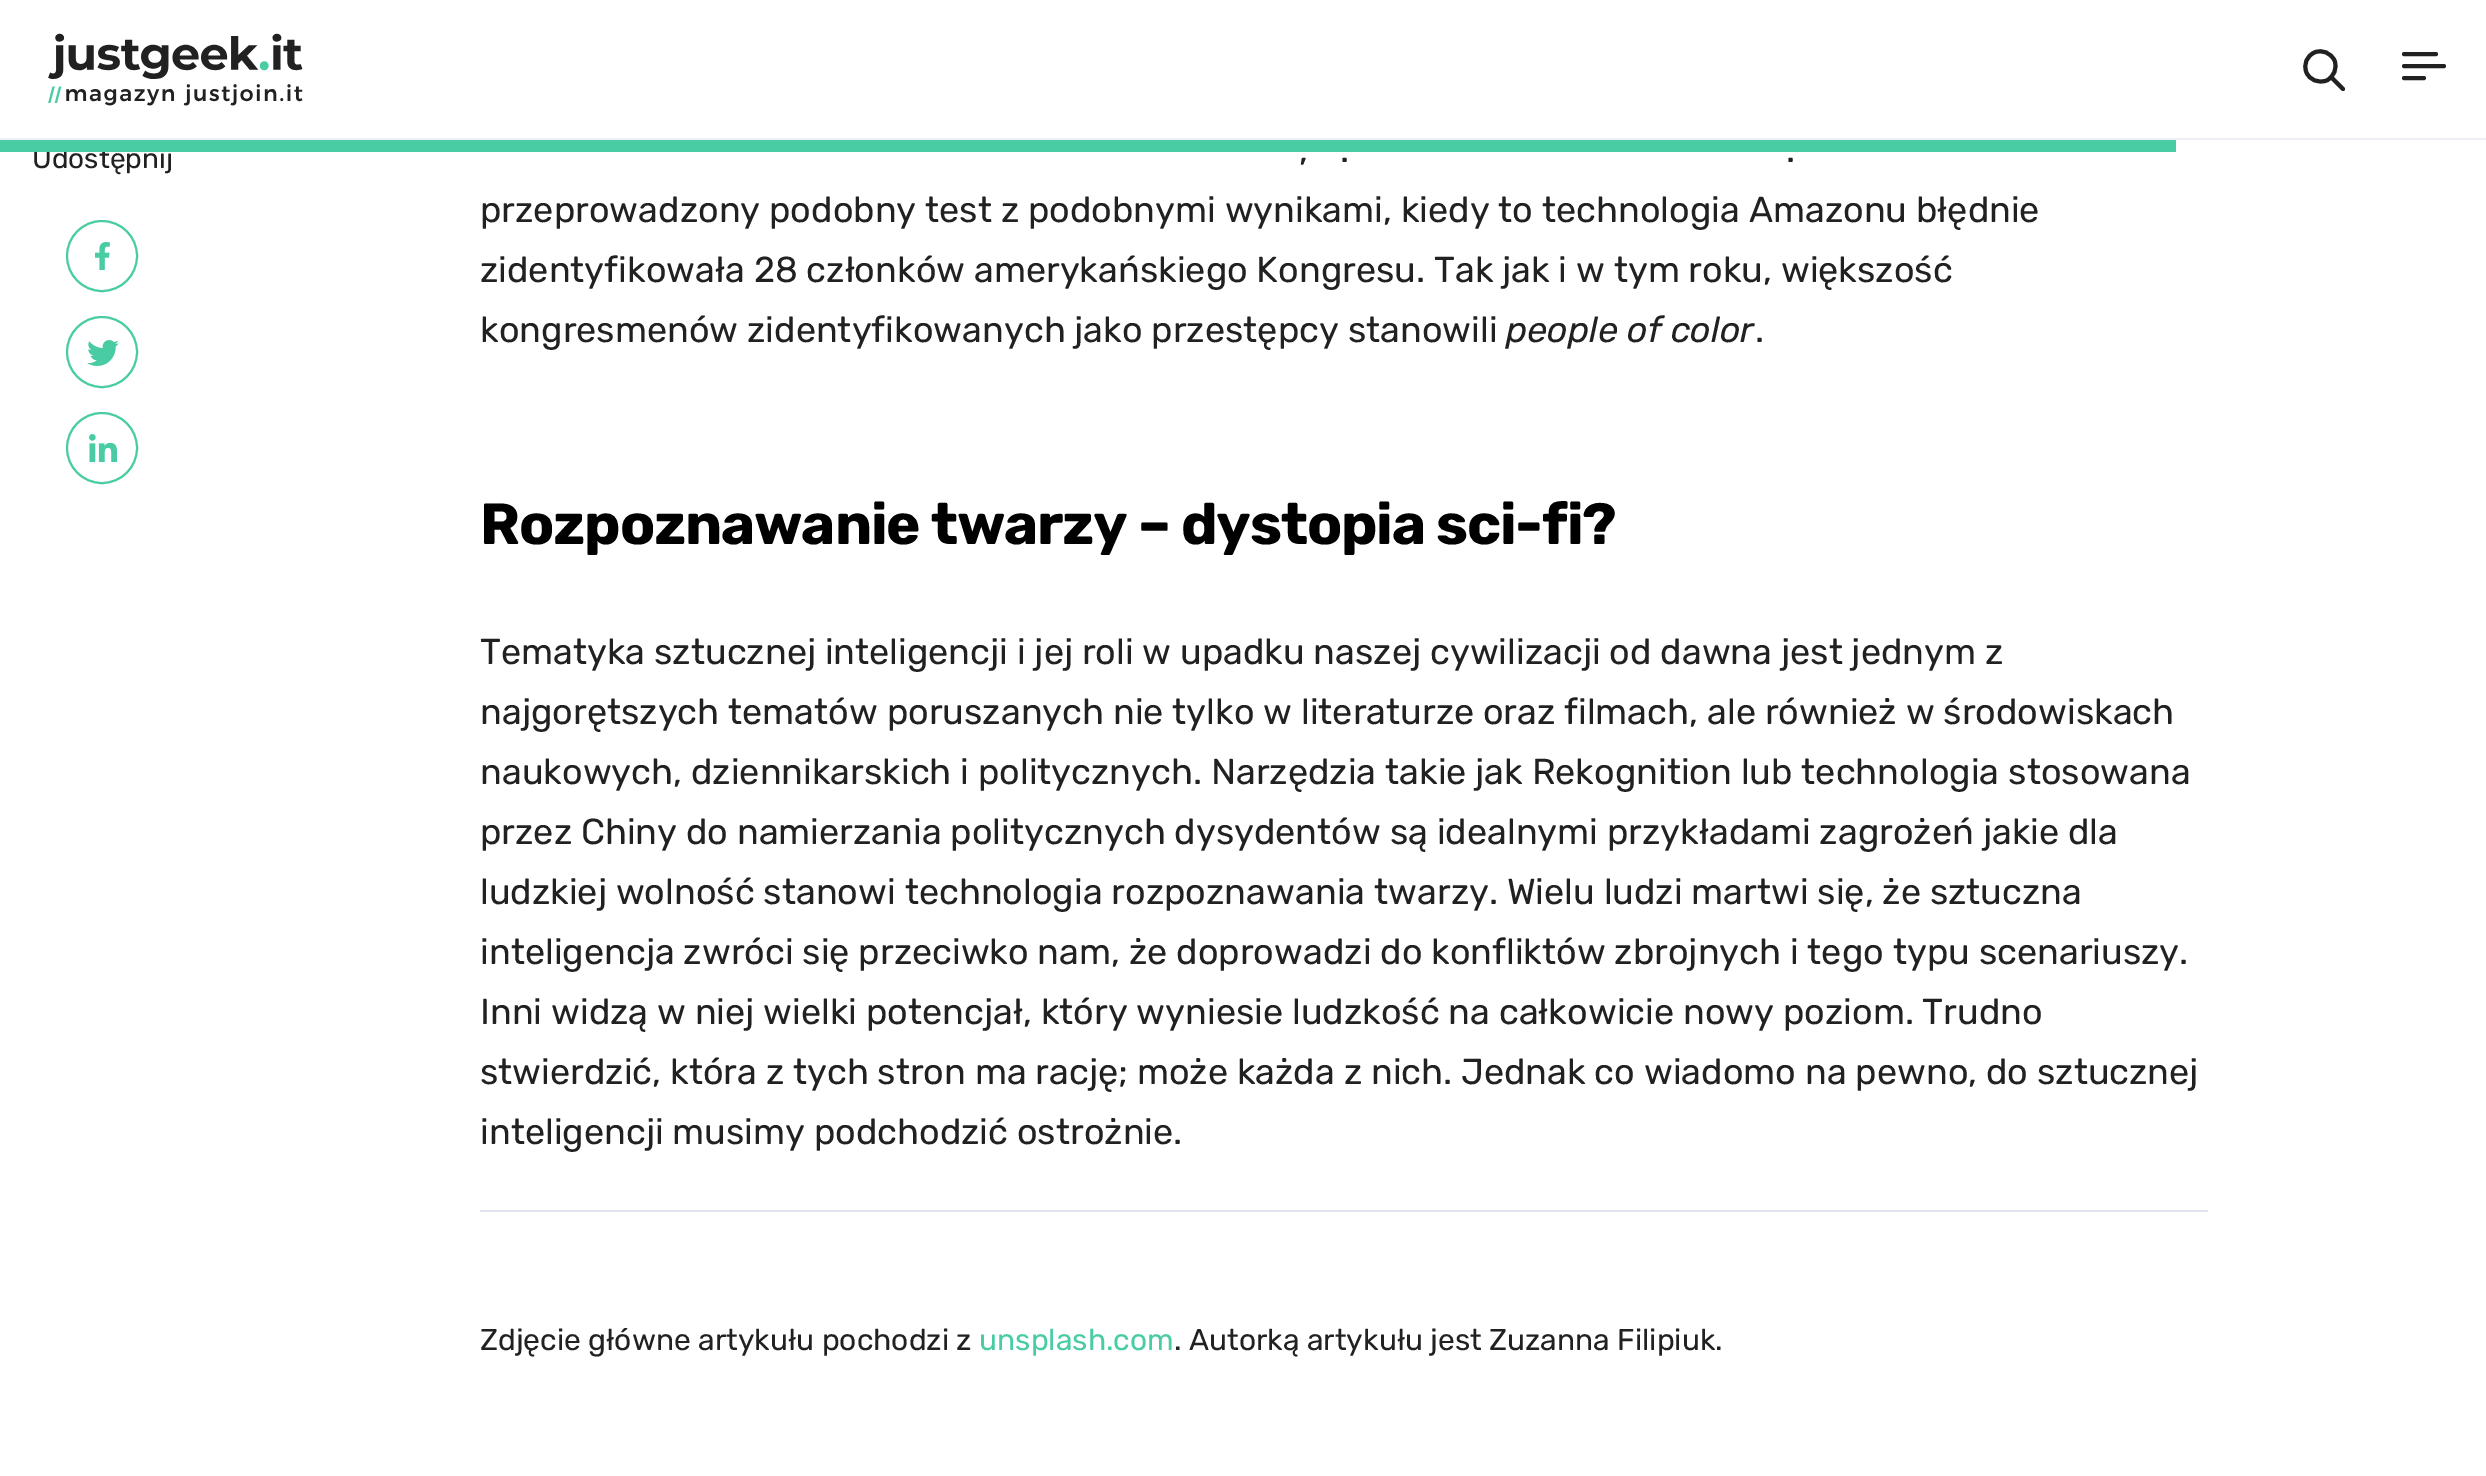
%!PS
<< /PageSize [2486 1476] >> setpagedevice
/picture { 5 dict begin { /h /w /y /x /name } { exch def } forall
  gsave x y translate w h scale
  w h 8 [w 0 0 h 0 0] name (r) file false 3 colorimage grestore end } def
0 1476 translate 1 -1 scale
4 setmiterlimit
1 setgray
0 0 2486 1476 rectfill
0.925 0.937 0.961 setrgbcolor
0 138 2486 2 rectfill
(img1.rgb) 48 33 255 73 picture
0.129 setgray
4 setlinewidth
1 setlinecap
1 setlinejoin
newpath 2326.5 80.5 moveto 2334 77 2337.5 68 2334.5 60.5 curveto 2331 53 2322 49 2314.5 52.5 curveto 2307 55.5 2303 64.5 2306.5 72.5 curveto 2309.5 80 2318.5 83.5 2326.5 80.5 curveto closepath 2331 77 moveto 2343 89 lineto stroke
0 setlinejoin
newpath 2404 54 moveto 2436 54 lineto 2404 66 moveto 2444 66 lineto 2404 78 moveto 2424 78 lineto stroke
/Rubik-Regular [28 0 0 -28 0 0] selectfont
32 168 moveto (Udostępnij) show
0.286 0.8 0.643 setrgbcolor
0 140 2176 12 rectfill
2 setlinewidth
0 setlinecap
newpath 102 256 35 0 360 arc closepath stroke
(img2.rgb) 95 242 15 28 picture
newpath 102 352 35 0 360 arc closepath stroke
(img3.rgb) 87 340 32 26 picture
newpath 102 448 35 0 360 arc closepath stroke
(img4.rgb) 89 434 28 28 picture
/Rubik-Regular [36 0 0 -36 0 0] selectfont
0.129 setgray
1299 162 moveto (,) show
1340 162 moveto (.) show
1786 162 moveto (.) show
480 222 moveto (przeprowadzony podobny test z podobnymi wynikami, kiedy to technologia Amazonu błędnie) show
480 282 moveto (zidentyfikowała 28 członków amerykańskiego Kongresu. Tak jak i w tym roku, większość) show
480 342 moveto (kongresmenów zidentyfikowanych jako przestępcy stanowili) show
/Rubik-Italic [36 0 0 -36 0 0] selectfont
1506 342 moveto (people of color) show
/Rubik-Regular [36 0 0 -36 0 0] selectfont
1755 342 moveto (.) show
/Rubik-Bold [58 0 0 -58 0 0] selectfont
0 setgray
480 544 moveto -1.15 0 (Rozpoznawanie twarzy – dystopia sci-fi?) ashow
/Rubik-Regular [36 0 0 -36 0 0] selectfont
0.129 setgray
480 664 moveto (Tematyka sztucznej inteligencji i jej roli w upadku naszej cywilizacji od dawna jest jednym z) show
480 724 moveto (najgorętszych tematów poruszanych nie tylko w literaturze oraz filmach, ale również w środowiskach) show
480 784 moveto (naukowych, dziennikarskich i politycznych. Narzędzia takie jak Rekognition lub technologia stosowana) show
480 844 moveto (przez Chiny do namierzania politycznych dysydentów są idealnymi przykładami zagrożeń jakie dla) show
480 904 moveto (ludzkiej wolność stanowi technologia rozpoznawania twarzy. Wielu ludzi martwi się, że sztuczna) show
480 964 moveto (inteligencja zwróci się przeciwko nam, że doprowadzi do konfliktów zbrojnych i tego typu scenariuszy.) show
480 1024 moveto (Inni widzą w niej wielki potencjał, który wyniesie ludzkość na całkowicie nowy poziom. Trudno) show
480 1084 moveto (stwierdzić, która z tych stron ma rację; może każda z nich. Jednak co wiadomo na pewno, do sztucznej) show
480 1144 moveto (inteligencji musimy podchodzić ostrożnie.) show
0.871 0.89 0.929 setrgbcolor
480 1210 1728 2 rectfill
/Rubik-Regular [30 0 0 -30 0 0] selectfont
0.129 setgray
480 1350 moveto (Zdjęcie główne artykułu pochodzi z) show
0.286 0.8 0.643 setrgbcolor
979 1350 moveto (unsplash.com) show
0.129 setgray
1174 1350 moveto (. Autorką artykułu jest Zuzanna Filipiuk.) show
showpage
